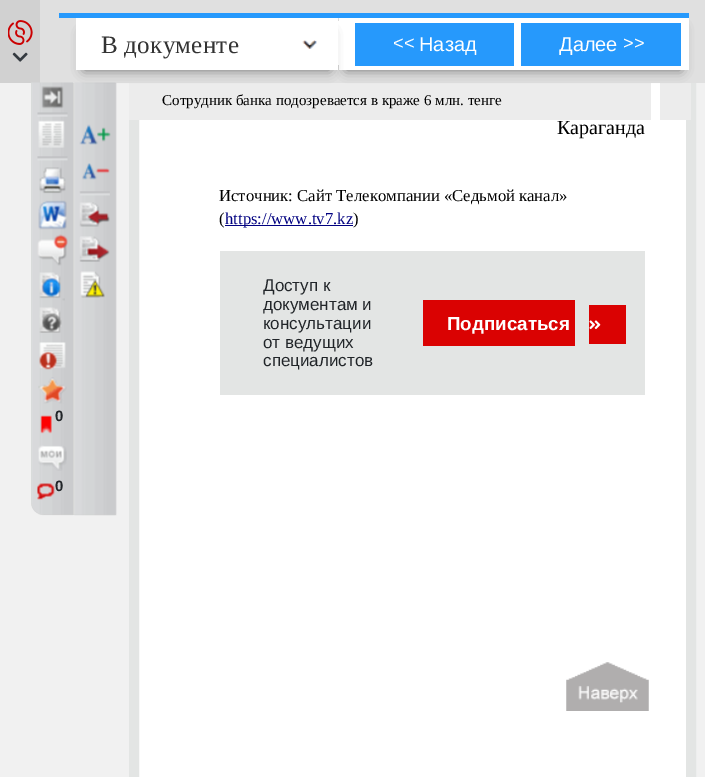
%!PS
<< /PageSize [705 777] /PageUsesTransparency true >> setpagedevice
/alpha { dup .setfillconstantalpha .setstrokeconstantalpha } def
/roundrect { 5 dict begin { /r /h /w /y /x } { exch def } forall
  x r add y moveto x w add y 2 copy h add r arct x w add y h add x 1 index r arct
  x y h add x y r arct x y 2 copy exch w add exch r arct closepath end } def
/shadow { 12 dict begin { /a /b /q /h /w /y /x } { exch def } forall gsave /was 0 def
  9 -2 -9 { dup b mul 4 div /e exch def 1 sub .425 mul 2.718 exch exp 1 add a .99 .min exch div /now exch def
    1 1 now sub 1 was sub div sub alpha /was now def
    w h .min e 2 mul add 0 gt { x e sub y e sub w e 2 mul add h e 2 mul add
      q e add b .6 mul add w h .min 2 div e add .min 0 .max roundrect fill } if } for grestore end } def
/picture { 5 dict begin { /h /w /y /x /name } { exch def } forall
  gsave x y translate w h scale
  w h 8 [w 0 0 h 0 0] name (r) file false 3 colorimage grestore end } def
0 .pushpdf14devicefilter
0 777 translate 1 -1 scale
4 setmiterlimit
0.945 setgray
0 0 705 777 rectfill
0.82 setgray
0 0 40 83 rectfill
(img1.rgb) 8 20 25 25 picture
(img2.rgb) 12 52 16 10 picture
1 setgray
139 83 547 694 rectfill
0.89 0.898 0.894 setrgbcolor
10 setlinewidth
134 -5 557 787 rectstroke
0.878 setgray
40 0 665 83 rectfill
0.925 setgray
129 83 522 37 rectfill
660 83 31 37 rectfill
0 setgray
346 28 335 42 0 6 0.5 shadow
0.149 0.6 0.988 setrgbcolor
59 13 630 5 rectfill
1 setgray
338 21 1 44 rectfill
339 18 350 52 rectfill
0.82 0.82 0.812 setrgbcolor
newpath 31 83 moveto 74 83 lineto 74 515 lineto 44 515 lineto 37 515 31 509 31 502 curveto closepath fill
(img4.rgb) 31 82 42 434 picture
74 83 42 432 rectfill
(img19.rgb) 73 82 44 434 picture
0 setgray
84 33 246 37 0 6 0.5 shadow
1 setgray
76 18 262 52 rectfill
(img3.rgb) 302 40 15 9 picture
/LiberationSerif-Regular [25 0 0 -25 0 0] selectfont
0.2 setgray
101 53 moveto 0.25 0 (В документе) ashow
0.149 0.6 0.988 setrgbcolor
355 23 159 43 rectfill
/LiberationSans-Regular [18 0 0 -18 0 0] selectfont
1 setgray
393 49 moveto (<<) show
/LiberationSans-Regular [20 0 0 -20 0 0] selectfont
419 51 moveto (Назад) show
0.149 0.6 0.988 setrgbcolor
521 23 160 43 rectfill
1 setgray
559 51 moveto (Далее) show
/LiberationSans-Regular [18 0 0 -18 0 0] selectfont
623 49 moveto (>>) show
/LiberationSerif-Regular [15 0 0 -15 0 0] selectfont
0 setgray
162 105 moveto (Сотрудник банка подозревается в краже 6 млн. тенге) show
(img5.rgb) 41 86 23 23 picture
(img6.rgb) 37 112 31 5 picture
(img7.rgb) 38 120 27 28 picture
(img8.rgb) 37 156 31 5 picture
(img9.rgb) 39 167 27 27 picture
(img10.rgb) 38 200 29 30 picture
(img11.rgb) 37 234 31 32 picture
(img12.rgb) 39 272 26 29 picture
(img13.rgb) 39 307 23 26 picture
(img14.rgb) 39 342 27 28 picture
(img15.rgb) 38 377 29 27 picture
(img16.rgb) 40 415 12 19 picture
/LiberationSans-Bold [15 0 0 -15 0 0] selectfont
0.129 0.145 0.161 setrgbcolor
55 421 moveto (0) show
(img17.rgb) 38 445 29 26 picture
(img18.rgb) 37 483 18 17 picture
55 491 moveto (0) show
(img20.rgb) 79 124 32 21 picture
(img21.rgb) 82 163 28 17 picture
(img22.rgb) 79 191 31 5 picture
(img23.rgb) 79 202 31 25 picture
(img24.rgb) 79 236 31 26 picture
(img25.rgb) 80 271 25 27 picture
/LiberationSerif-Regular [20 0 0 -20 0 0] selectfont
0 setgray
557 134 moveto (Караганда) show
/LiberationSerif-Regular [16.7 0 0 -16.7 0 0] selectfont
219 201 moveto (Источник: Сайт Телекомпании «Седьмой канал») show
219 224 moveto (\() show
0 0 0.502 setrgbcolor
225 225 128 1 rectfill
225 224 moveto (https://www.tv7.kz) show
0 setgray
353 224 moveto (\)) show
0.89 0.898 0.894 setrgbcolor
220 251 425 144 rectfill
/LiberationSans-Regular [17 0 0 -17 0 0] selectfont
0.129 0.145 0.161 setrgbcolor
263 291 moveto (Доступ к) show
263 310 moveto (документам и) show
263 329 moveto (консультации) show
263 348 moveto (от ведущих) show
263 366 moveto (специалистов) show
0.855 0.008 0.008 setrgbcolor
423 300 152 46 rectfill
589 305 37 39 rectfill
/LiberationSans-Bold [18.75 0 0 -18.75 0 0] selectfont
1 setgray
447 330 moveto (Подписаться) show
(img26.rgb) 589 320 12 10 picture
(img27.rgb) 566 662 83 49 picture
.poppdf14devicefilter showpage
